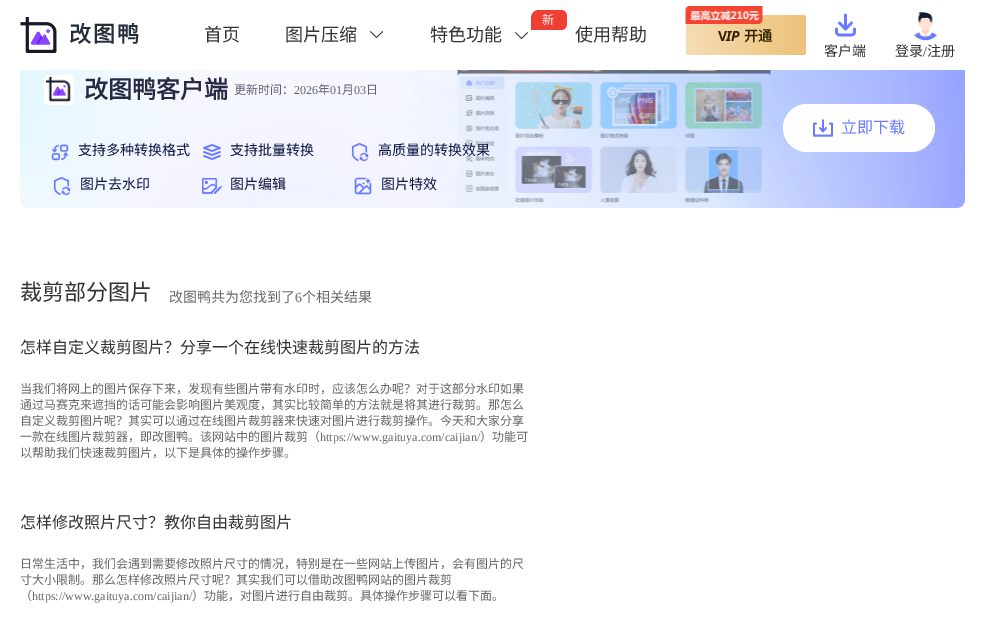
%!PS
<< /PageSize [985 628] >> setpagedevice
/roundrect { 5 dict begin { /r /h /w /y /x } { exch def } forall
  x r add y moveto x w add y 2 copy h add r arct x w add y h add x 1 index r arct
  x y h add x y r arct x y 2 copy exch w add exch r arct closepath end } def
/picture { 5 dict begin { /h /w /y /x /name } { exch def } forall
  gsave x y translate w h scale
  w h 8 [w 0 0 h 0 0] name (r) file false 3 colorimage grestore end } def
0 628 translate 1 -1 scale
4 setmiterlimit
1 setgray
0 0 985 628 rectfill
(img1.rgb) 20 17 37 36 picture
/NotoSansCJKSC-Bold [22 0 0 -22 0 0] selectfont
0.153 0.18 0.231 setrgbcolor
69 42 moveto 2 0 (改图鸭) ashow
/NotoSansCJKSC-Regular [18 0 0 -18 0 0] selectfont
0.2 setgray
204 41 moveto (首页) show
285 41 moveto (图片压缩) show
(img2.rgb) 370 31 13 7 picture
0.941 0.247 0.2 setrgbcolor
newpath 539 10 moveto 561 10 lineto 564.5 10 567 12.5 567 16 curveto 567 24 lineto 567 27.5 564.5 30 561 30 curveto 531 30 lineto 531 18 lineto 531 13.5 534.5 10 539 10 curveto closepath fill
/NotoSansCJKSC-Regular [12 0 0 -12 0 0] selectfont
1 setgray
542 24 moveto (新) show
/NotoSansCJKSC-Regular [18 0 0 -18 0 0] selectfont
0.2 setgray
430 41 moveto (特色功能) show
(img2.rgb) 515 32 13 7 picture
575 41 moveto (使用帮助) show
gsave 686 15 120 40 4 roundrect clip newpath
<< /ShadingType 2 /ColorSpace /DeviceRGB /Coords [686 35 806 35] /Extend [true true] /Function << /FunctionType 2 /Domain [0 1] /C0 [0.961 0.867 0.706] /C1 [0.929 0.761 0.475] /N 1 >> >> shfill grestore
(img3.rgb) 685 6 78 18 picture
/NotoSans-Bold [14 0 0 -14 0 0] selectfont
0.196 0.125 0 setrgbcolor
718 41 moveto (V) show
/NotoSans-BoldItalic [14 0 0 -14 0 0] selectfont
726 41 moveto (IP) show
/NotoSansCJKSC-Bold [14 0 0 -14 0 0] selectfont
744 41 moveto (开通) show
(img4.rgb) 835 13 21 24 picture
/NotoSansCJKSC-Regular [14 0 0 -14 0 0] selectfont
0.2 setgray
824 56 moveto (客户端) show
(img5.rgb) 913 12 25 29 picture
895 56 moveto (登录) show
/LiberationSerif-Regular [14 0 0 -14 0 0] selectfont
923 56 moveto (/) show
/NotoSansCJKSC-Regular [14 0 0 -14 0 0] selectfont
927 56 moveto (注册) show
(img6.rgb) 20 70 945 138 picture
(img7.rgb) 44 75 30 30 picture
/NotoSansCJKSC-Bold [24 0 0 -24 0 0] selectfont
0.157 0.165 0.263 setrgbcolor
84 98 moveto (改图鸭客户端) show
/NotoSansCJKSC-Regular [12 0 0 -12 0 0] selectfont
0.376 0.38 0.471 setrgbcolor
234 94 moveto (更新时间：) show
/LiberationSerif-Regular [12 0 0 -12 0 0] selectfont
294 94 moveto (2026) show
/NotoSansCJKSC-Regular [12 0 0 -12 0 0] selectfont
318 94 moveto (年) show
/LiberationSerif-Regular [12 0 0 -12 0 0] selectfont
330 94 moveto (01) show
/NotoSansCJKSC-Regular [12 0 0 -12 0 0] selectfont
342 94 moveto (月) show
/LiberationSerif-Regular [12 0 0 -12 0 0] selectfont
354 94 moveto (03) show
/NotoSansCJKSC-Regular [12 0 0 -12 0 0] selectfont
366 94 moveto (日) show
(img8.rgb) 51 144 18 17 picture
/NotoSansCJKSC-Regular [14 0 0 -14 0 0] selectfont
0.043 0.075 0.255 setrgbcolor
78 155 moveto (支持多种转换格式) show
(img9.rgb) 203 144 18 16 picture
230 155 moveto (支持批量转换) show
(img10.rgb) 351 142 18 20 picture
378 155 moveto (高质量的转换效果) show
(img11.rgb) 53 176 18 20 picture
80 189 moveto (图片去水印) show
(img12.rgb) 202 178 20 16 picture
230 189 moveto (图片编辑) show
(img13.rgb) 354 177 18 18 picture
381 189 moveto (图片特效) show
1 setgray
783 104 152 48 24 roundrect fill
(img14.rgb) 813 119 20 18 picture
/NotoSansCJKSC-Regular [16 0 0 -16 0 0] selectfont
0.416 0.482 1 setrgbcolor
841 133 moveto (立即下载) show
/NotoSansCJKSC-Regular [22 0 0 -22 0 0] selectfont
0.2 setgray
20 300 moveto (裁剪部分图片) show
/NotoSansCJKSC-Regular [14 0 0 -14 0 0] selectfont
0.4 setgray
169 302 moveto (改图鸭共为您找到了) show
/LiberationSerif-Regular [14 0 0 -14 0 0] selectfont
295 302 moveto (6) show
/NotoSansCJKSC-Regular [14 0 0 -14 0 0] selectfont
302 302 moveto (个相关结果) show
/NotoSansCJKSC-Regular [16 0 0 -16 0 0] selectfont
0.2 setgray
20 353 moveto (怎样自定义裁剪图片？分享一个在线快速裁剪图片的方法) show
/NotoSansCJKSC-Regular [12 0 0 -12 0 0] selectfont
0.4 setgray
20 393 moveto (当我们将网上的图片保存下来，发现有些图片带有水印时，应该怎么办呢？对于这部分水印如果) show
20 409 moveto (通过马赛克来遮挡的话可能会影响图片美观度，其实比较简单的方法就是将其进行裁剪。那怎么) show
20 425 moveto (自定义裁剪图片呢？其实可以通过在线图片裁剪器来快速对图片进行裁剪操作。今天和大家分享) show
20 441 moveto (一款在线图片裁剪器，即改图鸭。该网站中的图片裁剪（) show
/LiberationSerif-Regular [12 0 0 -12 0 0] selectfont
320 441 moveto (https://www.gaituya.com/caijian/) show
/NotoSansCJKSC-Regular [12 0 0 -12 0 0] selectfont
480 441 moveto (）功能可) show
20 457 moveto (以帮助我们快速裁剪图片，以下是具体的操作步骤。) show
/NotoSansCJKSC-Regular [16 0 0 -16 0 0] selectfont
0.2 setgray
20 528 moveto (怎样修改照片尺寸？教你自由裁剪图片) show
/NotoSansCJKSC-Regular [12 0 0 -12 0 0] selectfont
0.4 setgray
20 568 moveto (日常生活中，我们会遇到需要修改照片尺寸的情况，特别是在一些网站上传图片，会有图片的尺) show
20 584 moveto (寸大小限制。那么怎样修改照片尺寸呢？其实我们可以借助改图鸭网站的图片裁剪) show
20 600 moveto (（) show
/LiberationSerif-Regular [12 0 0 -12 0 0] selectfont
32 600 moveto (https://www.gaituya.com/caijian/) show
/NotoSansCJKSC-Regular [12 0 0 -12 0 0] selectfont
192 600 moveto (）功能，对图片进行自由裁剪。具体操作步骤可以看下面。) show
showpage
